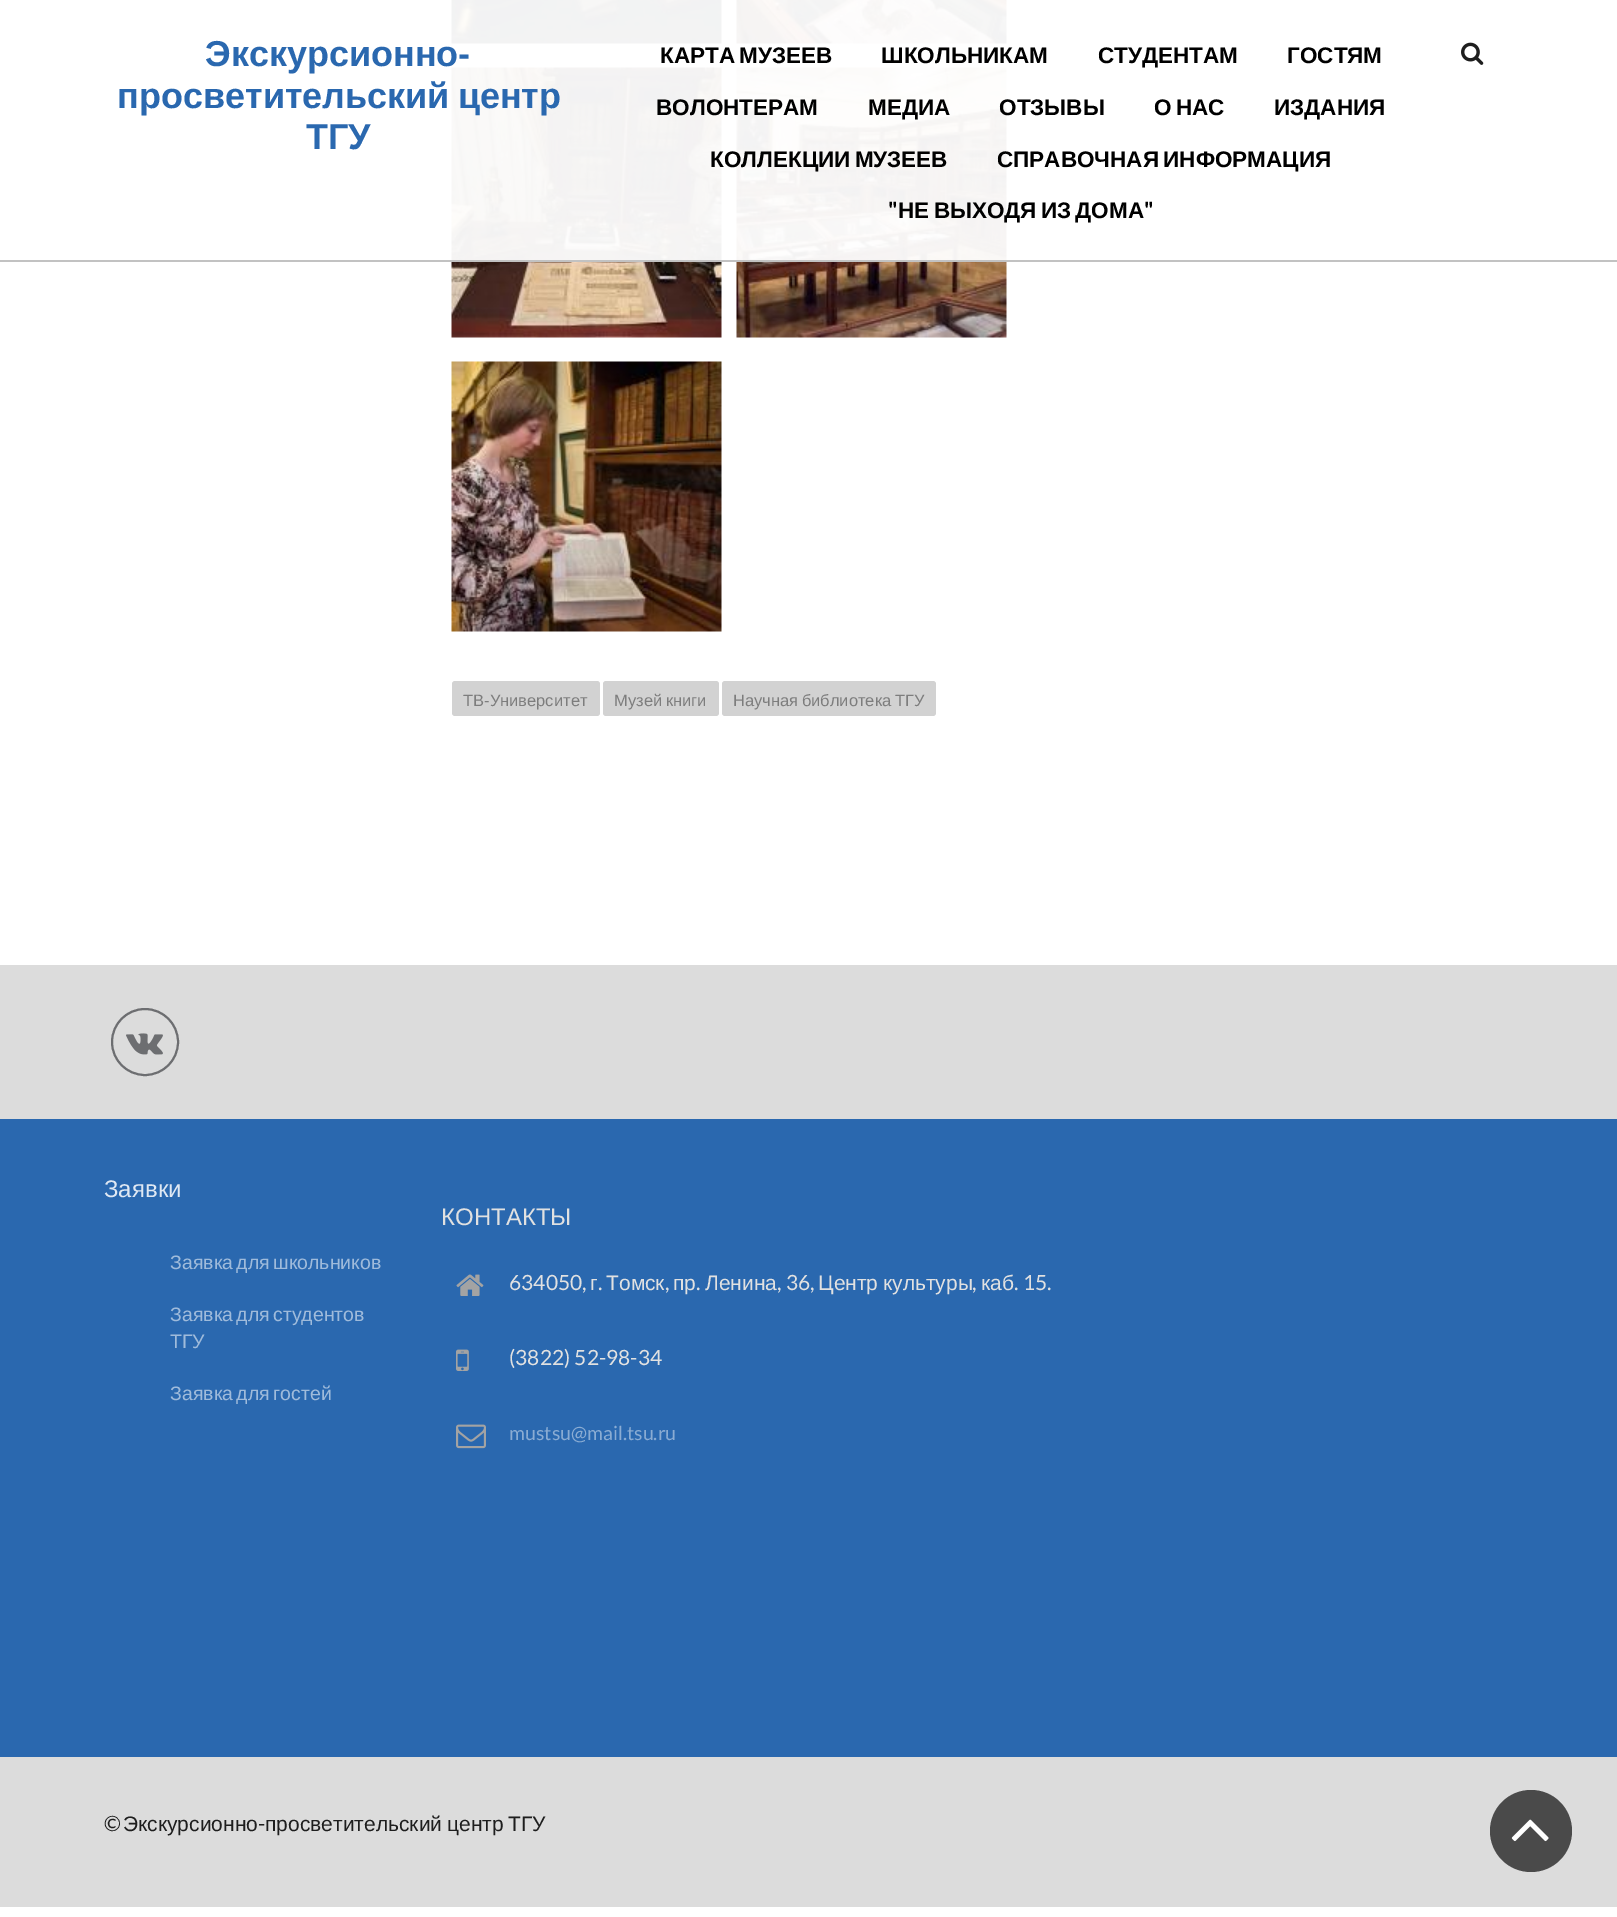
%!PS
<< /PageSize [1617 1917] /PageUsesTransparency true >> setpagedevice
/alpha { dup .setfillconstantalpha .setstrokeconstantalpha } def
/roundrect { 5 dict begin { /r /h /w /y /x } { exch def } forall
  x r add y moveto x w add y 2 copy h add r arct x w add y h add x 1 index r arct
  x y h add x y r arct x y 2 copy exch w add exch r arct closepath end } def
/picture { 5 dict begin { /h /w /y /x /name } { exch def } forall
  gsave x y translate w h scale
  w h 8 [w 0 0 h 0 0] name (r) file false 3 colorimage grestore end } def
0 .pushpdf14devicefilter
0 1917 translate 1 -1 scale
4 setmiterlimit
1 setgray
0 0 1617 1917 rectfill
(img2.rgb) 451 0 271 44 picture
(img3.rgb) 736 0 271 44 picture
(img4.rgb) 451 67 271 271 picture
(img5.rgb) 736 67 271 271 picture
0.95 alpha
451 0 556 260 rectfill
1 alpha
0.761 setgray
0 260 1617 2 rectfill
/LiberationSans-Bold [36 0 0 -36 0 0] selectfont
0.165 0.408 0.686 setrgbcolor
205 66 moveto (Экскурсионно-) show
117 108 moveto -2 0 32 (просветительский центр) widthshow
306 149 moveto (ТГУ) show
/LiberationSans-Bold [22.5 0 0 -22.5 0 0] selectfont
0 setgray
660 63 moveto -2 0 32 (КАРТА МУЗЕЕВ) widthshow
881 63 moveto (ШКОЛЬНИКАМ) show
1098 63 moveto (СТУДЕНТАМ) show
1287 63 moveto (ГОСТЯМ) show
656 115 moveto (ВОЛОНТЕРАМ) show
868 115 moveto (МЕДИА) show
999 115 moveto (ОТЗЫВЫ) show
1154 115 moveto -2 0 32 (О НАС) widthshow
1274 115 moveto (ИЗДАНИЯ) show
710 167 moveto -2 0 32 (КОЛЛЕКЦИИ МУЗЕЕВ) widthshow
997 167 moveto -2 0 32 (СПРАВОЧНАЯ ИНФОРМАЦИЯ) widthshow
/Lato-Bold [22.5 0 0 -22.5 0 0] selectfont
888 218 moveto (") show
/LiberationSans-Bold [22.5 0 0 -22.5 0 0] selectfont
898 218 moveto -2 0 32 (НЕ ВЫХОДЯ ИЗ ДОМА) widthshow
/Lato-Bold [22.5 0 0 -22.5 0 0] selectfont
1144 218 moveto (") show
(img1.rgb) 1461 42 23 23 picture
(img6.rgb) 451 361 271 271 picture
0.824 setgray
452 681 148 35 3 roundrect fill
/LiberationSans-Regular [16.5 0 0 -16.5 0 0] selectfont
0.49 setgray
463 706 moveto (ТВ-Университет) show
0.824 setgray
603 681 116 35 3 roundrect fill
0.49 setgray
614 706 moveto -1 0 32 (Музей книги) widthshow
0.824 setgray
722 681 214 35 3 roundrect fill
0.49 setgray
733 706 moveto -1 0 32 (Научная библиотека ТГУ) widthshow
0.863 setgray
0 965 1617 154 rectfill
0.427 0.431 0.443 setrgbcolor
2 setlinewidth
newpath 145 1042 33 0 360 arc closepath stroke
(img7.rgb) 126 1033 37 22 picture
0.165 0.408 0.686 setrgbcolor
0 1119 1617 638 rectfill
/LiberationSans-Regular [24 0 0 -24 0 0] selectfont
0.875 0.91 0.953 setrgbcolor
104 1197 moveto (Заявки) show
/LiberationSans-Regular [19.5 0 0 -19.5 0 0] selectfont
0.624 0.733 0.859 setrgbcolor
170 1269 moveto -2 0 32 (Заявка для школьников) widthshow
170 1321 moveto -2 0 32 (Заявка для студентов) widthshow
170 1348 moveto (ТГУ) show
170 1400 moveto -2 0 32 (Заявка для гостей) widthshow
/LiberationSans-Regular [24 0 0 -24 0 0] selectfont
0.882 setgray
441 1225 moveto (КОНТАКТЫ) show
(img8.rgb) 456 1274 28 22 picture
/Lato-Regular [21 0 0 -21 0 0] selectfont
509 1290 moveto (634050,) show
/LiberationSans-Regular [21 0 0 -21 0 0] selectfont
590 1290 moveto (г) show
/Lato-Regular [21 0 0 -21 0 0] selectfont
598 1290 moveto (.) show
/LiberationSans-Regular [21 0 0 -21 0 0] selectfont
606 1290 moveto (Томск) show
/Lato-Regular [21 0 0 -21 0 0] selectfont
665 1290 moveto (,) show
/LiberationSans-Regular [21 0 0 -21 0 0] selectfont
673 1290 moveto (пр) show
/Lato-Regular [21 0 0 -21 0 0] selectfont
696 1290 moveto (.) show
/LiberationSans-Regular [21 0 0 -21 0 0] selectfont
705 1290 moveto (Ленина) show
/Lato-Regular [21 0 0 -21 0 0] selectfont
777 1290 moveto (, 36,) show
/LiberationSans-Regular [21 0 0 -21 0 0] selectfont
818 1290 moveto (Центр) show
883 1290 moveto (культуры) show
/Lato-Regular [21 0 0 -21 0 0] selectfont
972 1290 moveto (,) show
/LiberationSans-Regular [21 0 0 -21 0 0] selectfont
981 1290 moveto (каб) show
/Lato-Regular [21 0 0 -21 0 0] selectfont
1014 1290 moveto (. 15.) show
(img9.rgb) 456 1349 13 22 picture
509 1365 moveto (\(3822\) 52-98-34) show
(img10.rgb) 456 1424 30 25 picture
/Lato-Regular [19.5 0 0 -19.5 0 0] selectfont
0.541 0.675 0.827 setrgbcolor
509 1440 moveto (mustsu@mail.tsu.ru) show
0.863 setgray
0 1757 1617 150 rectfill
/Lato-Regular [21 0 0 -21 0 0] selectfont
0.118 setgray
104 1831 moveto (©) show
/LiberationSans-Regular [21 0 0 -21 0 0] selectfont
123 1831 moveto (Экскурсионно) show
/Lato-Regular [21 0 0 -21 0 0] selectfont
258 1831 moveto (-) show
/LiberationSans-Regular [21 0 0 -21 0 0] selectfont
265 1831 moveto -1 0 32 (просветительский центр ТГУ) widthshow
0.29 setgray
newpath 1531 1831 41 0 360 arc closepath fill
(img11.rgb) 1511 1819 38 23 picture
.poppdf14devicefilter showpage
